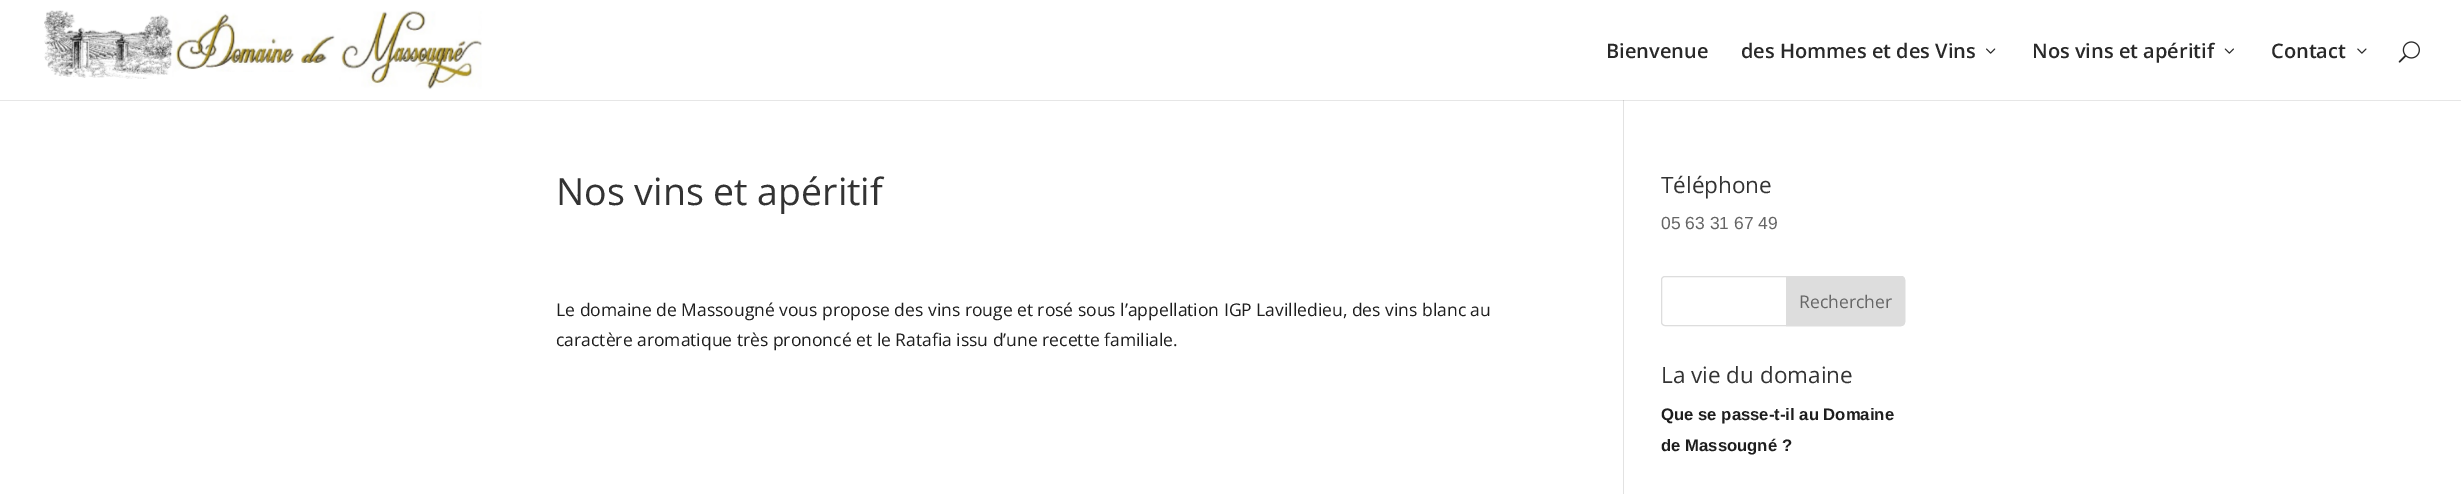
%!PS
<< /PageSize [2461 494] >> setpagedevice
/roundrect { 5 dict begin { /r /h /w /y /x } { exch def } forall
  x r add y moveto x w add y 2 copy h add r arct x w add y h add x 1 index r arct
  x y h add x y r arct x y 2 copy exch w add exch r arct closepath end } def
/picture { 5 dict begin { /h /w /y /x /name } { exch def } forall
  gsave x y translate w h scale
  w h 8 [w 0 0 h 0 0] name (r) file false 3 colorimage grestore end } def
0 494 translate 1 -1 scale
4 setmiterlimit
1 setgray
0 0 2461 494 rectfill
0.902 setgray
0 100 2461 1 rectfill
(img1.rgb) 44 10 438 80 picture
/OpenSans-SemiBold [20 0 0 -20 0 0] selectfont
0.161 setgray
1606 58 moveto (Bienvenue) show
1741 58 moveto (des Hommes et des Vins) show
(img2.rgb) 1986 48 10 6 picture
2032 58 moveto (Nos vins et apéritif) show
(img3.rgb) 2224 48 10 6 picture
2271 58 moveto (Contact) show
(img4.rgb) 2357 48 10 6 picture
(img5.rgb) 2398 41 22 22 picture
0.886 setgray
1623 100 1 394 rectfill
0.796 setgray
1623 100 1 1 rectfill
/OpenSans-Regular [37.5 0 0 -37.5 0 0] selectfont
0.2 setgray
556 205 moveto (Nos vins et apéritif) show
/OpenSans-Regular [17.5 0 0 -17.5 0 0] selectfont
0.118 setgray
556 316 moveto (Le domaine de Massougné vous propose des vins rouge et rosé sous l’appellation IGP Lavilledieu, des vins blanc au) show
556 346 moveto (caractère aromatique très prononcé et le Ratafia issu d’une recette familiale.) show
/OpenSans-Regular [22.5 0 0 -22.5 0 0] selectfont
0.2 setgray
1661 193 moveto (Téléphone) show
/LiberationSans-Regular [17.5 0 0 -17.5 0 0] selectfont
0.4 setgray
1661 229 moveto (05 63 31 67 49) show
0.867 setgray
1661.5 276.5 243 49 3.5 roundrect stroke
newpath 1786.5 276.5 moveto 1901 276.5 lineto 1903 276.5 1904.5 278 1904.5 280 curveto 1904.5 322 lineto 1904.5 324 1903 325.5 1901 325.5 curveto 1786.5 325.5 lineto closepath gsave fill grestore
stroke
/OpenSans-Regular [17.5 0 0 -17.5 0 0] selectfont
0.4 setgray
1799 308 moveto (Rechercher) show
/OpenSans-Regular [22.5 0 0 -22.5 0 0] selectfont
0.2 setgray
1661 383 moveto (La vie du domaine) show
/LiberationSans-Bold [16.7 0 0 -16.7 0 0] selectfont
0.118 setgray
1661 420 moveto (Que se passe-t-il au Domaine) show
1661 451 moveto (de Massougné ?) show
showpage
